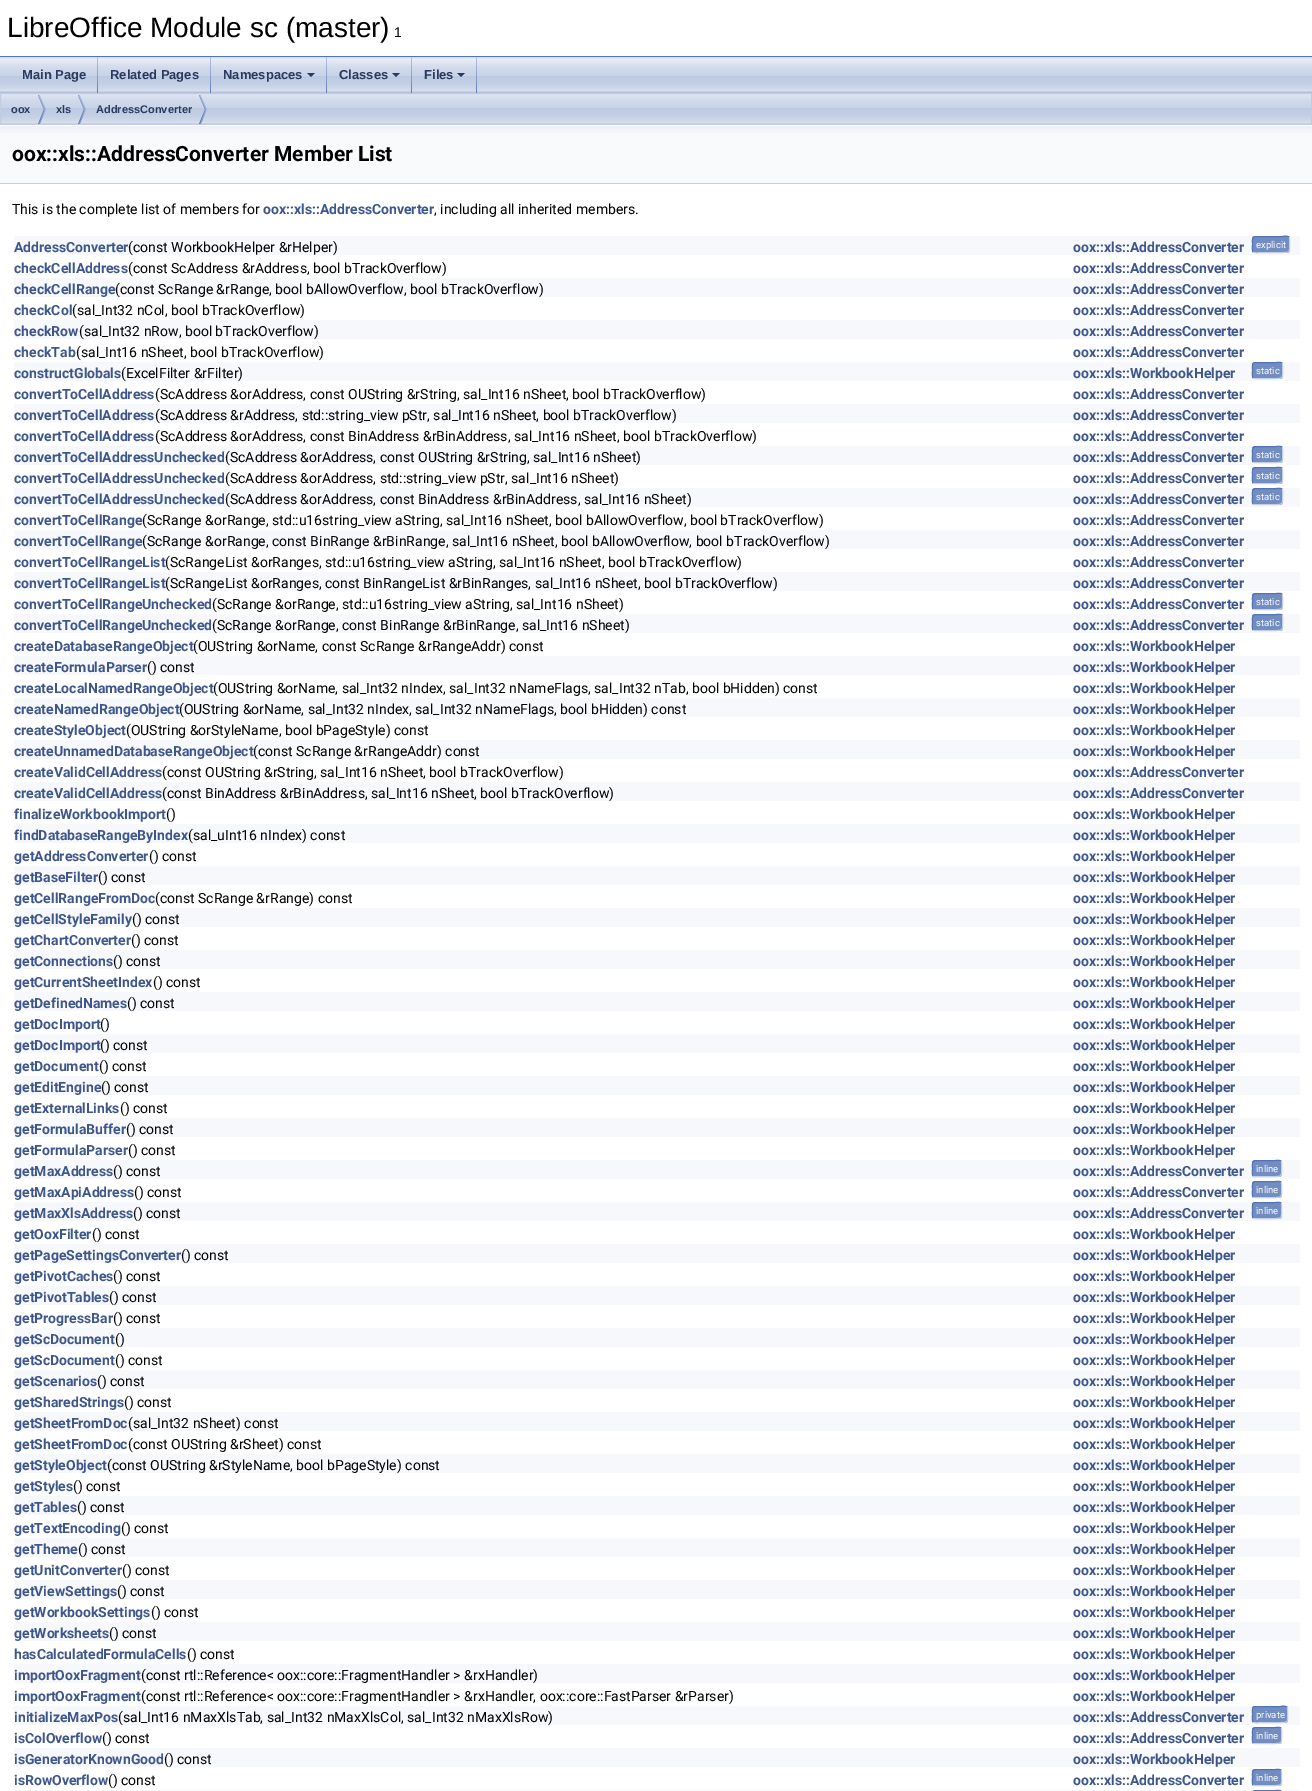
%!PS
<< /PageSize [1312 1791] >> setpagedevice
/roundrect { 5 dict begin { /r /h /w /y /x } { exch def } forall
  x r add y moveto x w add y 2 copy h add r arct x w add y h add x 1 index r arct
  x y h add x y r arct x y 2 copy exch w add exch r arct closepath end } def
/picture { 5 dict begin { /h /w /y /x /name } { exch def } forall
  gsave x y translate w h scale
  w h 8 [w 0 0 h 0 0] name (r) file false 3 colorimage grestore end } def
0 1791 translate 1 -1 scale
4 setmiterlimit
1 setgray
0 0 1312 1791 rectfill
0.325 0.451 0.706 setrgbcolor
0 56 1312 1 rectfill
/LiberationSans-Regular [28 0 0 -28 0 0] selectfont
0 setgray
7 37 moveto (LibreOffice Module sc \(master\)) show
/LiberationSans-Regular [14 0 0 -14 0 0] selectfont
394 37 moveto (1) show
(img1.rgb) 0 57 1312 36 picture
(img2.rgb) 97 57 1 36 picture
/LiberationSans-Bold [13 0 0 -13 0 0] selectfont
0.157 0.227 0.365 setrgbcolor
22 79 moveto (Main Page) show
(img2.rgb) 210 57 1 36 picture
110 79 moveto (Related Pages) show
(img2.rgb) 326 57 1 36 picture
223 79 moveto (Namespaces) show
newpath 307 73 moveto 315 73 lineto 311 77 lineto closepath fill
(img2.rgb) 411 57 1 36 picture
339 79 moveto (Classes) show
newpath 392 73 moveto 400 73 lineto 396 77 lineto closepath fill
(img2.rgb) 476 57 1 36 picture
424 79 moveto (Files) show
newpath 457 73 moveto 465 73 lineto 461 77 lineto closepath fill
(img3.rgb) 1 94 1310 30 picture
0.761 0.804 0.894 setrgbcolor
0.5 93.5 1311 31 rectstroke
(img4.rgb) 38 95 8 29 picture
/LiberationSans-Bold [11 0 0 -11 0 0] selectfont
0.157 0.227 0.365 setrgbcolor
11 113 moveto (oox) show
(img4.rgb) 78 95 8 29 picture
56 113 moveto (xls) show
(img4.rgb) 199 95 8 29 picture
96 113 moveto (AddressConverter) show
0.976 0.98 0.988 setrgbcolor
0 133 1312 50 rectfill
(img5.rgb) 0 125 1312 8 picture
0.769 0.812 0.898 setrgbcolor
0 183 1312 1 rectfill
/Roboto-Bold [21 0 0 -21 0 0] selectfont
0 setgray
12 161 moveto (oox::xls::AddressConverter Member List) show
/Roboto-Regular [14 0 0 -14 0 0] selectfont
12 214 moveto (This is the complete list of members for) show
/Roboto-Bold [14 0 0 -14 0 0] selectfont
0.239 0.341 0.549 setrgbcolor
263 214 moveto (oox::xls::AddressConverter) show
/Roboto-Regular [14 0 0 -14 0 0] selectfont
0 setgray
434 214 moveto (, including all inherited members.) show
0.969 0.973 0.984 setrgbcolor
14 236 1286 19 rectfill
/Roboto-Bold [14 0 0 -14 0 0] selectfont
0.239 0.341 0.549 setrgbcolor
14 252 moveto (AddressConverter) show
/Roboto-Regular [14 0 0 -14 0 0] selectfont
0 setgray
128 252 moveto (\(const WorkbookHelper &rHelper\)) show
/Roboto-Bold [14 0 0 -14 0 0] selectfont
0.239 0.341 0.549 setrgbcolor
1073 252 moveto (oox::xls::AddressConverter) show
0.447 0.553 0.757 setrgbcolor
1252 236 38 17 3 roundrect fill
0.769 0.812 0.898 setrgbcolor
newpath 1289 237 moveto 1290 238.5 1289.5 243 1289.5 244.5 curveto 1289.5 253 1290.5 252.5 1281.5 252.5 curveto 1260.5 252.5 lineto 1259.5 252.5 1255 253.5 1253 252 curveto stroke
0.325 0.451 0.706 setrgbcolor
newpath 1253 252 moveto 1252 250.5 1252.5 246 1252.5 244.5 curveto 1252.5 236 1251.5 236.5 1260.5 236.5 curveto 1281.5 236.5 lineto 1282.5 236.5 1287 235.5 1289 237 curveto stroke
/Roboto-Regular [9.5 0 0 -9.5 0 0] selectfont
1 setgray
1256 248 moveto (explicit) show
/Roboto-Bold [14 0 0 -14 0 0] selectfont
0.239 0.341 0.549 setrgbcolor
14 273 moveto (checkCellAddress) show
/Roboto-Regular [14 0 0 -14 0 0] selectfont
0 setgray
128 273 moveto (\(const ScAddress &rAddress, bool bTrackOverflow\)) show
/Roboto-Bold [14 0 0 -14 0 0] selectfont
0.239 0.341 0.549 setrgbcolor
1073 273 moveto (oox::xls::AddressConverter) show
0.969 0.973 0.984 setrgbcolor
14 278 1286 19 rectfill
0.239 0.341 0.549 setrgbcolor
14 294 moveto (checkCellRange) show
/Roboto-Regular [14 0 0 -14 0 0] selectfont
0 setgray
115 294 moveto (\(const ScRange &rRange, bool bAllowOverflow, bool bTrackOverflow\)) show
/Roboto-Bold [14 0 0 -14 0 0] selectfont
0.239 0.341 0.549 setrgbcolor
1073 294 moveto (oox::xls::AddressConverter) show
14 315 moveto (checkCol) show
/Roboto-Regular [14 0 0 -14 0 0] selectfont
0 setgray
72 315 moveto (\(sal_Int32 nCol, bool bTrackOverflow\)) show
/Roboto-Bold [14 0 0 -14 0 0] selectfont
0.239 0.341 0.549 setrgbcolor
1073 315 moveto (oox::xls::AddressConverter) show
0.969 0.973 0.984 setrgbcolor
14 320 1286 19 rectfill
0.239 0.341 0.549 setrgbcolor
14 336 moveto (checkRow) show
/Roboto-Regular [14 0 0 -14 0 0] selectfont
0 setgray
79 336 moveto (\(sal_Int32 nRow, bool bTrackOverflow\)) show
/Roboto-Bold [14 0 0 -14 0 0] selectfont
0.239 0.341 0.549 setrgbcolor
1073 336 moveto (oox::xls::AddressConverter) show
14 357 moveto (checkTab) show
/Roboto-Regular [14 0 0 -14 0 0] selectfont
0 setgray
76 357 moveto (\(sal_Int16 nSheet, bool bTrackOverflow\)) show
/Roboto-Bold [14 0 0 -14 0 0] selectfont
0.239 0.341 0.549 setrgbcolor
1073 357 moveto (oox::xls::AddressConverter) show
0.969 0.973 0.984 setrgbcolor
14 362 1286 19 rectfill
0.239 0.341 0.549 setrgbcolor
14 378 moveto (constructGlobals) show
/Roboto-Regular [14 0 0 -14 0 0] selectfont
0 setgray
121 378 moveto (\(ExcelFilter &rFilter\)) show
/Roboto-Bold [14 0 0 -14 0 0] selectfont
0.239 0.341 0.549 setrgbcolor
1073 378 moveto (oox::xls::WorkbookHelper) show
0.447 0.553 0.757 setrgbcolor
1252 362 31 17 3 roundrect fill
0.769 0.812 0.898 setrgbcolor
newpath 1282 363 moveto 1283 364.5 1282.5 369 1282.5 370.5 curveto 1282.5 378 1283.5 378.5 1276 378.5 curveto 1259 378.5 lineto 1258 378.5 1254.5 379 1253 378 curveto stroke
0.325 0.451 0.706 setrgbcolor
newpath 1253 378 moveto 1252 376.5 1252.5 372 1252.5 370.5 curveto 1252.5 363 1251.5 362.5 1259 362.5 curveto 1276 362.5 lineto 1277 362.5 1280.5 362 1282 363 curveto stroke
/Roboto-Regular [9.5 0 0 -9.5 0 0] selectfont
1 setgray
1256 374 moveto (static) show
/Roboto-Bold [14 0 0 -14 0 0] selectfont
0.239 0.341 0.549 setrgbcolor
14 399 moveto (convertToCellAddress) show
/Roboto-Regular [14 0 0 -14 0 0] selectfont
0 setgray
155 399 moveto (\(ScAddress &orAddress, const OUString &rString, sal_Int16 nSheet, bool bTrackOverflow\)) show
/Roboto-Bold [14 0 0 -14 0 0] selectfont
0.239 0.341 0.549 setrgbcolor
1073 399 moveto (oox::xls::AddressConverter) show
0.969 0.973 0.984 setrgbcolor
14 404 1286 19 rectfill
0.239 0.341 0.549 setrgbcolor
14 420 moveto (convertToCellAddress) show
/Roboto-Regular [14 0 0 -14 0 0] selectfont
0 setgray
155 420 moveto (\(ScAddress &rAddress, std::string_view pStr, sal_Int16 nSheet, bool bTrackOverflow\)) show
/Roboto-Bold [14 0 0 -14 0 0] selectfont
0.239 0.341 0.549 setrgbcolor
1073 420 moveto (oox::xls::AddressConverter) show
14 441 moveto (convertToCellAddress) show
/Roboto-Regular [14 0 0 -14 0 0] selectfont
0 setgray
155 441 moveto (\(ScAddress &orAddress, const BinAddress &rBinAddress, sal_Int16 nSheet, bool bTrackOverflow\)) show
/Roboto-Bold [14 0 0 -14 0 0] selectfont
0.239 0.341 0.549 setrgbcolor
1073 441 moveto (oox::xls::AddressConverter) show
0.969 0.973 0.984 setrgbcolor
14 446 1286 19 rectfill
0.239 0.341 0.549 setrgbcolor
14 462 moveto (convertToCellAddressUnchecked) show
/Roboto-Regular [14 0 0 -14 0 0] selectfont
0 setgray
225 462 moveto (\(ScAddress &orAddress, const OUString &rString, sal_Int16 nSheet\)) show
/Roboto-Bold [14 0 0 -14 0 0] selectfont
0.239 0.341 0.549 setrgbcolor
1073 462 moveto (oox::xls::AddressConverter) show
0.447 0.553 0.757 setrgbcolor
1252 446 31 17 3 roundrect fill
0.769 0.812 0.898 setrgbcolor
newpath 1282 447 moveto 1283 448.5 1282.5 453 1282.5 454.5 curveto 1282.5 462 1283.5 462.5 1276 462.5 curveto 1259 462.5 lineto 1258 462.5 1254.5 463 1253 462 curveto stroke
0.325 0.451 0.706 setrgbcolor
newpath 1253 462 moveto 1252 460.5 1252.5 456 1252.5 454.5 curveto 1252.5 447 1251.5 446.5 1259 446.5 curveto 1276 446.5 lineto 1277 446.5 1280.5 446 1282 447 curveto stroke
/Roboto-Regular [9.5 0 0 -9.5 0 0] selectfont
1 setgray
1256 458 moveto (static) show
/Roboto-Bold [14 0 0 -14 0 0] selectfont
0.239 0.341 0.549 setrgbcolor
14 483 moveto (convertToCellAddressUnchecked) show
/Roboto-Regular [14 0 0 -14 0 0] selectfont
0 setgray
225 483 moveto (\(ScAddress &orAddress, std::string_view pStr, sal_Int16 nSheet\)) show
/Roboto-Bold [14 0 0 -14 0 0] selectfont
0.239 0.341 0.549 setrgbcolor
1073 483 moveto (oox::xls::AddressConverter) show
0.447 0.553 0.757 setrgbcolor
1252 467 31 17 3 roundrect fill
0.769 0.812 0.898 setrgbcolor
newpath 1282 468 moveto 1283 469.5 1282.5 474 1282.5 475.5 curveto 1282.5 483 1283.5 483.5 1276 483.5 curveto 1259 483.5 lineto 1258 483.5 1254.5 484 1253 483 curveto stroke
0.325 0.451 0.706 setrgbcolor
newpath 1253 483 moveto 1252 481.5 1252.5 477 1252.5 475.5 curveto 1252.5 468 1251.5 467.5 1259 467.5 curveto 1276 467.5 lineto 1277 467.5 1280.5 467 1282 468 curveto stroke
/Roboto-Regular [9.5 0 0 -9.5 0 0] selectfont
1 setgray
1256 479 moveto (static) show
0.969 0.973 0.984 setrgbcolor
14 488 1286 19 rectfill
/Roboto-Bold [14 0 0 -14 0 0] selectfont
0.239 0.341 0.549 setrgbcolor
14 504 moveto (convertToCellAddressUnchecked) show
/Roboto-Regular [14 0 0 -14 0 0] selectfont
0 setgray
225 504 moveto (\(ScAddress &orAddress, const BinAddress &rBinAddress, sal_Int16 nSheet\)) show
/Roboto-Bold [14 0 0 -14 0 0] selectfont
0.239 0.341 0.549 setrgbcolor
1073 504 moveto (oox::xls::AddressConverter) show
0.447 0.553 0.757 setrgbcolor
1252 488 31 17 3 roundrect fill
0.769 0.812 0.898 setrgbcolor
newpath 1282 489 moveto 1283 490.5 1282.5 495 1282.5 496.5 curveto 1282.5 504 1283.5 504.5 1276 504.5 curveto 1259 504.5 lineto 1258 504.5 1254.5 505 1253 504 curveto stroke
0.325 0.451 0.706 setrgbcolor
newpath 1253 504 moveto 1252 502.5 1252.5 498 1252.5 496.5 curveto 1252.5 489 1251.5 488.5 1259 488.5 curveto 1276 488.5 lineto 1277 488.5 1280.5 488 1282 489 curveto stroke
/Roboto-Regular [9.5 0 0 -9.5 0 0] selectfont
1 setgray
1256 500 moveto (static) show
/Roboto-Bold [14 0 0 -14 0 0] selectfont
0.239 0.341 0.549 setrgbcolor
14 525 moveto (convertToCellRange) show
/Roboto-Regular [14 0 0 -14 0 0] selectfont
0 setgray
142 525 moveto (\(ScRange &orRange, std::u16string_view aString, sal_Int16 nSheet, bool bAllowOverflow, bool bTrackOverflow\)) show
/Roboto-Bold [14 0 0 -14 0 0] selectfont
0.239 0.341 0.549 setrgbcolor
1073 525 moveto (oox::xls::AddressConverter) show
0.969 0.973 0.984 setrgbcolor
14 530 1286 19 rectfill
0.239 0.341 0.549 setrgbcolor
14 546 moveto (convertToCellRange) show
/Roboto-Regular [14 0 0 -14 0 0] selectfont
0 setgray
142 546 moveto (\(ScRange &orRange, const BinRange &rBinRange, sal_Int16 nSheet, bool bAllowOverflow, bool bTrackOverflow\)) show
/Roboto-Bold [14 0 0 -14 0 0] selectfont
0.239 0.341 0.549 setrgbcolor
1073 546 moveto (oox::xls::AddressConverter) show
14 567 moveto (convertToCellRangeList) show
/Roboto-Regular [14 0 0 -14 0 0] selectfont
0 setgray
165 567 moveto (\(ScRangeList &orRanges, std::u16string_view aString, sal_Int16 nSheet, bool bTrackOverflow\)) show
/Roboto-Bold [14 0 0 -14 0 0] selectfont
0.239 0.341 0.549 setrgbcolor
1073 567 moveto (oox::xls::AddressConverter) show
0.969 0.973 0.984 setrgbcolor
14 572 1286 19 rectfill
0.239 0.341 0.549 setrgbcolor
14 588 moveto (convertToCellRangeList) show
/Roboto-Regular [14 0 0 -14 0 0] selectfont
0 setgray
165 588 moveto (\(ScRangeList &orRanges, const BinRangeList &rBinRanges, sal_Int16 nSheet, bool bTrackOverflow\)) show
/Roboto-Bold [14 0 0 -14 0 0] selectfont
0.239 0.341 0.549 setrgbcolor
1073 588 moveto (oox::xls::AddressConverter) show
14 609 moveto (convertToCellRangeUnchecked) show
/Roboto-Regular [14 0 0 -14 0 0] selectfont
0 setgray
212 609 moveto (\(ScRange &orRange, std::u16string_view aString, sal_Int16 nSheet\)) show
/Roboto-Bold [14 0 0 -14 0 0] selectfont
0.239 0.341 0.549 setrgbcolor
1073 609 moveto (oox::xls::AddressConverter) show
0.447 0.553 0.757 setrgbcolor
1252 593 31 17 3 roundrect fill
0.769 0.812 0.898 setrgbcolor
newpath 1282 594 moveto 1283 595.5 1282.5 600 1282.5 601.5 curveto 1282.5 609 1283.5 609.5 1276 609.5 curveto 1259 609.5 lineto 1258 609.5 1254.5 610 1253 609 curveto stroke
0.325 0.451 0.706 setrgbcolor
newpath 1253 609 moveto 1252 607.5 1252.5 603 1252.5 601.5 curveto 1252.5 594 1251.5 593.5 1259 593.5 curveto 1276 593.5 lineto 1277 593.5 1280.5 593 1282 594 curveto stroke
/Roboto-Regular [9.5 0 0 -9.5 0 0] selectfont
1 setgray
1256 605 moveto (static) show
0.969 0.973 0.984 setrgbcolor
14 614 1286 19 rectfill
/Roboto-Bold [14 0 0 -14 0 0] selectfont
0.239 0.341 0.549 setrgbcolor
14 630 moveto (convertToCellRangeUnchecked) show
/Roboto-Regular [14 0 0 -14 0 0] selectfont
0 setgray
212 630 moveto (\(ScRange &orRange, const BinRange &rBinRange, sal_Int16 nSheet\)) show
/Roboto-Bold [14 0 0 -14 0 0] selectfont
0.239 0.341 0.549 setrgbcolor
1073 630 moveto (oox::xls::AddressConverter) show
0.447 0.553 0.757 setrgbcolor
1252 614 31 17 3 roundrect fill
0.769 0.812 0.898 setrgbcolor
newpath 1282 615 moveto 1283 616.5 1282.5 621 1282.5 622.5 curveto 1282.5 630 1283.5 630.5 1276 630.5 curveto 1259 630.5 lineto 1258 630.5 1254.5 631 1253 630 curveto stroke
0.325 0.451 0.706 setrgbcolor
newpath 1253 630 moveto 1252 628.5 1252.5 624 1252.5 622.5 curveto 1252.5 615 1251.5 614.5 1259 614.5 curveto 1276 614.5 lineto 1277 614.5 1280.5 614 1282 615 curveto stroke
/Roboto-Regular [9.5 0 0 -9.5 0 0] selectfont
1 setgray
1256 626 moveto (static) show
/Roboto-Bold [14 0 0 -14 0 0] selectfont
0.239 0.341 0.549 setrgbcolor
14 651 moveto (createDatabaseRangeObject) show
/Roboto-Regular [14 0 0 -14 0 0] selectfont
0 setgray
193 651 moveto (\(OUString &orName, const ScRange &rRangeAddr\) const) show
/Roboto-Bold [14 0 0 -14 0 0] selectfont
0.239 0.341 0.549 setrgbcolor
1073 651 moveto (oox::xls::WorkbookHelper) show
0.969 0.973 0.984 setrgbcolor
14 656 1286 19 rectfill
0.239 0.341 0.549 setrgbcolor
14 672 moveto (createFormulaParser) show
/Roboto-Regular [14 0 0 -14 0 0] selectfont
0 setgray
147 672 moveto (\(\) const) show
/Roboto-Bold [14 0 0 -14 0 0] selectfont
0.239 0.341 0.549 setrgbcolor
1073 672 moveto (oox::xls::WorkbookHelper) show
14 693 moveto (createLocalNamedRangeObject) show
/Roboto-Regular [14 0 0 -14 0 0] selectfont
0 setgray
213 693 moveto (\(OUString &orName, sal_Int32 nIndex, sal_Int32 nNameFlags, sal_Int32 nTab, bool bHidden\) const) show
/Roboto-Bold [14 0 0 -14 0 0] selectfont
0.239 0.341 0.549 setrgbcolor
1073 693 moveto (oox::xls::WorkbookHelper) show
0.969 0.973 0.984 setrgbcolor
14 698 1286 19 rectfill
0.239 0.341 0.549 setrgbcolor
14 714 moveto (createNamedRangeObject) show
/Roboto-Regular [14 0 0 -14 0 0] selectfont
0 setgray
179 714 moveto (\(OUString &orName, sal_Int32 nIndex, sal_Int32 nNameFlags, bool bHidden\) const) show
/Roboto-Bold [14 0 0 -14 0 0] selectfont
0.239 0.341 0.549 setrgbcolor
1073 714 moveto (oox::xls::WorkbookHelper) show
14 735 moveto (createStyleObject) show
/Roboto-Regular [14 0 0 -14 0 0] selectfont
0 setgray
126 735 moveto (\(OUString &orStyleName, bool bPageStyle\) const) show
/Roboto-Bold [14 0 0 -14 0 0] selectfont
0.239 0.341 0.549 setrgbcolor
1073 735 moveto (oox::xls::WorkbookHelper) show
0.969 0.973 0.984 setrgbcolor
14 740 1286 19 rectfill
0.239 0.341 0.549 setrgbcolor
14 756 moveto (createUnnamedDatabaseRangeObject) show
/Roboto-Regular [14 0 0 -14 0 0] selectfont
0 setgray
253 756 moveto (\(const ScRange &rRangeAddr\) const) show
/Roboto-Bold [14 0 0 -14 0 0] selectfont
0.239 0.341 0.549 setrgbcolor
1073 756 moveto (oox::xls::WorkbookHelper) show
14 777 moveto (createValidCellAddress) show
/Roboto-Regular [14 0 0 -14 0 0] selectfont
0 setgray
162 777 moveto (\(const OUString &rString, sal_Int16 nSheet, bool bTrackOverflow\)) show
/Roboto-Bold [14 0 0 -14 0 0] selectfont
0.239 0.341 0.549 setrgbcolor
1073 777 moveto (oox::xls::AddressConverter) show
0.969 0.973 0.984 setrgbcolor
14 782 1286 19 rectfill
0.239 0.341 0.549 setrgbcolor
14 798 moveto (createValidCellAddress) show
/Roboto-Regular [14 0 0 -14 0 0] selectfont
0 setgray
162 798 moveto (\(const BinAddress &rBinAddress, sal_Int16 nSheet, bool bTrackOverflow\)) show
/Roboto-Bold [14 0 0 -14 0 0] selectfont
0.239 0.341 0.549 setrgbcolor
1073 798 moveto (oox::xls::AddressConverter) show
14 819 moveto (finalizeWorkbookImport) show
/Roboto-Regular [14 0 0 -14 0 0] selectfont
0 setgray
166 819 moveto (\(\)) show
/Roboto-Bold [14 0 0 -14 0 0] selectfont
0.239 0.341 0.549 setrgbcolor
1073 819 moveto (oox::xls::WorkbookHelper) show
0.969 0.973 0.984 setrgbcolor
14 824 1286 19 rectfill
0.239 0.341 0.549 setrgbcolor
14 840 moveto (findDatabaseRangeByIndex) show
/Roboto-Regular [14 0 0 -14 0 0] selectfont
0 setgray
188 840 moveto (\(sal_uInt16 nIndex\) const) show
/Roboto-Bold [14 0 0 -14 0 0] selectfont
0.239 0.341 0.549 setrgbcolor
1073 840 moveto (oox::xls::WorkbookHelper) show
14 861 moveto (getAddressConverter) show
/Roboto-Regular [14 0 0 -14 0 0] selectfont
0 setgray
149 861 moveto (\(\) const) show
/Roboto-Bold [14 0 0 -14 0 0] selectfont
0.239 0.341 0.549 setrgbcolor
1073 861 moveto (oox::xls::WorkbookHelper) show
0.969 0.973 0.984 setrgbcolor
14 866 1286 19 rectfill
0.239 0.341 0.549 setrgbcolor
14 882 moveto (getBaseFilter) show
/Roboto-Regular [14 0 0 -14 0 0] selectfont
0 setgray
98 882 moveto (\(\) const) show
/Roboto-Bold [14 0 0 -14 0 0] selectfont
0.239 0.341 0.549 setrgbcolor
1073 882 moveto (oox::xls::WorkbookHelper) show
14 903 moveto (getCellRangeFromDoc) show
/Roboto-Regular [14 0 0 -14 0 0] selectfont
0 setgray
155 903 moveto (\(const ScRange &rRange\) const) show
/Roboto-Bold [14 0 0 -14 0 0] selectfont
0.239 0.341 0.549 setrgbcolor
1073 903 moveto (oox::xls::WorkbookHelper) show
0.969 0.973 0.984 setrgbcolor
14 908 1286 19 rectfill
0.239 0.341 0.549 setrgbcolor
14 924 moveto (getCellStyleFamily) show
/Roboto-Regular [14 0 0 -14 0 0] selectfont
0 setgray
132 924 moveto (\(\) const) show
/Roboto-Bold [14 0 0 -14 0 0] selectfont
0.239 0.341 0.549 setrgbcolor
1073 924 moveto (oox::xls::WorkbookHelper) show
14 945 moveto (getChartConverter) show
/Roboto-Regular [14 0 0 -14 0 0] selectfont
0 setgray
131 945 moveto (\(\) const) show
/Roboto-Bold [14 0 0 -14 0 0] selectfont
0.239 0.341 0.549 setrgbcolor
1073 945 moveto (oox::xls::WorkbookHelper) show
0.969 0.973 0.984 setrgbcolor
14 950 1286 19 rectfill
0.239 0.341 0.549 setrgbcolor
14 966 moveto (getConnections) show
/Roboto-Regular [14 0 0 -14 0 0] selectfont
0 setgray
113 966 moveto (\(\) const) show
/Roboto-Bold [14 0 0 -14 0 0] selectfont
0.239 0.341 0.549 setrgbcolor
1073 966 moveto (oox::xls::WorkbookHelper) show
14 987 moveto (getCurrentSheetIndex) show
/Roboto-Regular [14 0 0 -14 0 0] selectfont
0 setgray
153 987 moveto (\(\) const) show
/Roboto-Bold [14 0 0 -14 0 0] selectfont
0.239 0.341 0.549 setrgbcolor
1073 987 moveto (oox::xls::WorkbookHelper) show
0.969 0.973 0.984 setrgbcolor
14 992 1286 19 rectfill
0.239 0.341 0.549 setrgbcolor
14 1008 moveto (getDefinedNames) show
/Roboto-Regular [14 0 0 -14 0 0] selectfont
0 setgray
127 1008 moveto (\(\) const) show
/Roboto-Bold [14 0 0 -14 0 0] selectfont
0.239 0.341 0.549 setrgbcolor
1073 1008 moveto (oox::xls::WorkbookHelper) show
14 1029 moveto (getDocImport) show
/Roboto-Regular [14 0 0 -14 0 0] selectfont
0 setgray
100 1029 moveto (\(\)) show
/Roboto-Bold [14 0 0 -14 0 0] selectfont
0.239 0.341 0.549 setrgbcolor
1073 1029 moveto (oox::xls::WorkbookHelper) show
0.969 0.973 0.984 setrgbcolor
14 1034 1286 19 rectfill
0.239 0.341 0.549 setrgbcolor
14 1050 moveto (getDocImport) show
/Roboto-Regular [14 0 0 -14 0 0] selectfont
0 setgray
100 1050 moveto (\(\) const) show
/Roboto-Bold [14 0 0 -14 0 0] selectfont
0.239 0.341 0.549 setrgbcolor
1073 1050 moveto (oox::xls::WorkbookHelper) show
14 1071 moveto (getDocument) show
/Roboto-Regular [14 0 0 -14 0 0] selectfont
0 setgray
99 1071 moveto (\(\) const) show
/Roboto-Bold [14 0 0 -14 0 0] selectfont
0.239 0.341 0.549 setrgbcolor
1073 1071 moveto (oox::xls::WorkbookHelper) show
0.969 0.973 0.984 setrgbcolor
14 1076 1286 19 rectfill
0.239 0.341 0.549 setrgbcolor
14 1092 moveto (getEditEngine) show
/Roboto-Regular [14 0 0 -14 0 0] selectfont
0 setgray
101 1092 moveto (\(\) const) show
/Roboto-Bold [14 0 0 -14 0 0] selectfont
0.239 0.341 0.549 setrgbcolor
1073 1092 moveto (oox::xls::WorkbookHelper) show
14 1113 moveto (getExternalLinks) show
/Roboto-Regular [14 0 0 -14 0 0] selectfont
0 setgray
120 1113 moveto (\(\) const) show
/Roboto-Bold [14 0 0 -14 0 0] selectfont
0.239 0.341 0.549 setrgbcolor
1073 1113 moveto (oox::xls::WorkbookHelper) show
0.969 0.973 0.984 setrgbcolor
14 1118 1286 19 rectfill
0.239 0.341 0.549 setrgbcolor
14 1134 moveto (getFormulaBuffer) show
/Roboto-Regular [14 0 0 -14 0 0] selectfont
0 setgray
126 1134 moveto (\(\) const) show
/Roboto-Bold [14 0 0 -14 0 0] selectfont
0.239 0.341 0.549 setrgbcolor
1073 1134 moveto (oox::xls::WorkbookHelper) show
14 1155 moveto (getFormulaParser) show
/Roboto-Regular [14 0 0 -14 0 0] selectfont
0 setgray
128 1155 moveto (\(\) const) show
/Roboto-Bold [14 0 0 -14 0 0] selectfont
0.239 0.341 0.549 setrgbcolor
1073 1155 moveto (oox::xls::WorkbookHelper) show
0.969 0.973 0.984 setrgbcolor
14 1160 1286 19 rectfill
0.239 0.341 0.549 setrgbcolor
14 1176 moveto (getMaxAddress) show
/Roboto-Regular [14 0 0 -14 0 0] selectfont
0 setgray
113 1176 moveto (\(\) const) show
/Roboto-Bold [14 0 0 -14 0 0] selectfont
0.239 0.341 0.549 setrgbcolor
1073 1176 moveto (oox::xls::AddressConverter) show
0.447 0.553 0.757 setrgbcolor
1252 1160 30 17 3 roundrect fill
0.769 0.812 0.898 setrgbcolor
newpath 1281 1161 moveto 1282 1162.5 1281.5 1167 1281.5 1168.5 curveto 1281.5 1176 1282.5 1176.5 1275 1176.5 curveto 1259 1176.5 lineto 1257.5 1176.5 1254.5 1177 1253 1176 curveto stroke
0.325 0.451 0.706 setrgbcolor
newpath 1253 1176 moveto 1252 1174.5 1252.5 1170 1252.5 1168.5 curveto 1252.5 1161 1251.5 1160.5 1259 1160.5 curveto 1275 1160.5 lineto 1276.5 1160.5 1279.5 1160 1281 1161 curveto stroke
/Roboto-Regular [9.5 0 0 -9.5 0 0] selectfont
1 setgray
1256 1172 moveto (inline) show
/Roboto-Bold [14 0 0 -14 0 0] selectfont
0.239 0.341 0.549 setrgbcolor
14 1197 moveto (getMaxApiAddress) show
/Roboto-Regular [14 0 0 -14 0 0] selectfont
0 setgray
134 1197 moveto (\(\) const) show
/Roboto-Bold [14 0 0 -14 0 0] selectfont
0.239 0.341 0.549 setrgbcolor
1073 1197 moveto (oox::xls::AddressConverter) show
0.447 0.553 0.757 setrgbcolor
1252 1181 30 17 3 roundrect fill
0.769 0.812 0.898 setrgbcolor
newpath 1281 1182 moveto 1282 1183.5 1281.5 1188 1281.5 1189.5 curveto 1281.5 1197 1282.5 1197.5 1275 1197.5 curveto 1259 1197.5 lineto 1257.5 1197.5 1254.5 1198 1253 1197 curveto stroke
0.325 0.451 0.706 setrgbcolor
newpath 1253 1197 moveto 1252 1195.5 1252.5 1191 1252.5 1189.5 curveto 1252.5 1182 1251.5 1181.5 1259 1181.5 curveto 1275 1181.5 lineto 1276.5 1181.5 1279.5 1181 1281 1182 curveto stroke
/Roboto-Regular [9.5 0 0 -9.5 0 0] selectfont
1 setgray
1256 1193 moveto (inline) show
0.969 0.973 0.984 setrgbcolor
14 1202 1286 19 rectfill
/Roboto-Bold [14 0 0 -14 0 0] selectfont
0.239 0.341 0.549 setrgbcolor
14 1218 moveto (getMaxXlsAddress) show
/Roboto-Regular [14 0 0 -14 0 0] selectfont
0 setgray
133 1218 moveto (\(\) const) show
/Roboto-Bold [14 0 0 -14 0 0] selectfont
0.239 0.341 0.549 setrgbcolor
1073 1218 moveto (oox::xls::AddressConverter) show
0.447 0.553 0.757 setrgbcolor
1252 1202 30 17 3 roundrect fill
0.769 0.812 0.898 setrgbcolor
newpath 1281 1203 moveto 1282 1204.5 1281.5 1209 1281.5 1210.5 curveto 1281.5 1218 1282.5 1218.5 1275 1218.5 curveto 1259 1218.5 lineto 1257.5 1218.5 1254.5 1219 1253 1218 curveto stroke
0.325 0.451 0.706 setrgbcolor
newpath 1253 1218 moveto 1252 1216.5 1252.5 1212 1252.5 1210.5 curveto 1252.5 1203 1251.5 1202.5 1259 1202.5 curveto 1275 1202.5 lineto 1276.5 1202.5 1279.5 1202 1281 1203 curveto stroke
/Roboto-Regular [9.5 0 0 -9.5 0 0] selectfont
1 setgray
1256 1214 moveto (inline) show
/Roboto-Bold [14 0 0 -14 0 0] selectfont
0.239 0.341 0.549 setrgbcolor
14 1239 moveto (getOoxFilter) show
/Roboto-Regular [14 0 0 -14 0 0] selectfont
0 setgray
92 1239 moveto (\(\) const) show
/Roboto-Bold [14 0 0 -14 0 0] selectfont
0.239 0.341 0.549 setrgbcolor
1073 1239 moveto (oox::xls::WorkbookHelper) show
0.969 0.973 0.984 setrgbcolor
14 1244 1286 19 rectfill
0.239 0.341 0.549 setrgbcolor
14 1260 moveto (getPageSettingsConverter) show
/Roboto-Regular [14 0 0 -14 0 0] selectfont
0 setgray
181 1260 moveto (\(\) const) show
/Roboto-Bold [14 0 0 -14 0 0] selectfont
0.239 0.341 0.549 setrgbcolor
1073 1260 moveto (oox::xls::WorkbookHelper) show
14 1281 moveto (getPivotCaches) show
/Roboto-Regular [14 0 0 -14 0 0] selectfont
0 setgray
113 1281 moveto (\(\) const) show
/Roboto-Bold [14 0 0 -14 0 0] selectfont
0.239 0.341 0.549 setrgbcolor
1073 1281 moveto (oox::xls::WorkbookHelper) show
0.969 0.973 0.984 setrgbcolor
14 1286 1286 19 rectfill
0.239 0.341 0.549 setrgbcolor
14 1302 moveto (getPivotTables) show
/Roboto-Regular [14 0 0 -14 0 0] selectfont
0 setgray
109 1302 moveto (\(\) const) show
/Roboto-Bold [14 0 0 -14 0 0] selectfont
0.239 0.341 0.549 setrgbcolor
1073 1302 moveto (oox::xls::WorkbookHelper) show
14 1323 moveto (getProgressBar) show
/Roboto-Regular [14 0 0 -14 0 0] selectfont
0 setgray
113 1323 moveto (\(\) const) show
/Roboto-Bold [14 0 0 -14 0 0] selectfont
0.239 0.341 0.549 setrgbcolor
1073 1323 moveto (oox::xls::WorkbookHelper) show
0.969 0.973 0.984 setrgbcolor
14 1328 1286 19 rectfill
0.239 0.341 0.549 setrgbcolor
14 1344 moveto (getScDocument) show
/Roboto-Regular [14 0 0 -14 0 0] selectfont
0 setgray
115 1344 moveto (\(\)) show
/Roboto-Bold [14 0 0 -14 0 0] selectfont
0.239 0.341 0.549 setrgbcolor
1073 1344 moveto (oox::xls::WorkbookHelper) show
14 1365 moveto (getScDocument) show
/Roboto-Regular [14 0 0 -14 0 0] selectfont
0 setgray
115 1365 moveto (\(\) const) show
/Roboto-Bold [14 0 0 -14 0 0] selectfont
0.239 0.341 0.549 setrgbcolor
1073 1365 moveto (oox::xls::WorkbookHelper) show
0.969 0.973 0.984 setrgbcolor
14 1370 1286 19 rectfill
0.239 0.341 0.549 setrgbcolor
14 1386 moveto (getScenarios) show
/Roboto-Regular [14 0 0 -14 0 0] selectfont
0 setgray
97 1386 moveto (\(\) const) show
/Roboto-Bold [14 0 0 -14 0 0] selectfont
0.239 0.341 0.549 setrgbcolor
1073 1386 moveto (oox::xls::WorkbookHelper) show
14 1407 moveto (getSharedStrings) show
/Roboto-Regular [14 0 0 -14 0 0] selectfont
0 setgray
124 1407 moveto (\(\) const) show
/Roboto-Bold [14 0 0 -14 0 0] selectfont
0.239 0.341 0.549 setrgbcolor
1073 1407 moveto (oox::xls::WorkbookHelper) show
0.969 0.973 0.984 setrgbcolor
14 1412 1286 19 rectfill
0.239 0.341 0.549 setrgbcolor
14 1428 moveto (getSheetFromDoc) show
/Roboto-Regular [14 0 0 -14 0 0] selectfont
0 setgray
128 1428 moveto (\(sal_Int32 nSheet\) const) show
/Roboto-Bold [14 0 0 -14 0 0] selectfont
0.239 0.341 0.549 setrgbcolor
1073 1428 moveto (oox::xls::WorkbookHelper) show
14 1449 moveto (getSheetFromDoc) show
/Roboto-Regular [14 0 0 -14 0 0] selectfont
0 setgray
128 1449 moveto (\(const OUString &rSheet\) const) show
/Roboto-Bold [14 0 0 -14 0 0] selectfont
0.239 0.341 0.549 setrgbcolor
1073 1449 moveto (oox::xls::WorkbookHelper) show
0.969 0.973 0.984 setrgbcolor
14 1454 1286 19 rectfill
0.239 0.341 0.549 setrgbcolor
14 1470 moveto (getStyleObject) show
/Roboto-Regular [14 0 0 -14 0 0] selectfont
0 setgray
107 1470 moveto (\(const OUString &rStyleName, bool bPageStyle\) const) show
/Roboto-Bold [14 0 0 -14 0 0] selectfont
0.239 0.341 0.549 setrgbcolor
1073 1470 moveto (oox::xls::WorkbookHelper) show
14 1491 moveto (getStyles) show
/Roboto-Regular [14 0 0 -14 0 0] selectfont
0 setgray
73 1491 moveto (\(\) const) show
/Roboto-Bold [14 0 0 -14 0 0] selectfont
0.239 0.341 0.549 setrgbcolor
1073 1491 moveto (oox::xls::WorkbookHelper) show
0.969 0.973 0.984 setrgbcolor
14 1496 1286 19 rectfill
0.239 0.341 0.549 setrgbcolor
14 1512 moveto (getTables) show
/Roboto-Regular [14 0 0 -14 0 0] selectfont
0 setgray
77 1512 moveto (\(\) const) show
/Roboto-Bold [14 0 0 -14 0 0] selectfont
0.239 0.341 0.549 setrgbcolor
1073 1512 moveto (oox::xls::WorkbookHelper) show
14 1533 moveto (getTextEncoding) show
/Roboto-Regular [14 0 0 -14 0 0] selectfont
0 setgray
121 1533 moveto (\(\) const) show
/Roboto-Bold [14 0 0 -14 0 0] selectfont
0.239 0.341 0.549 setrgbcolor
1073 1533 moveto (oox::xls::WorkbookHelper) show
0.969 0.973 0.984 setrgbcolor
14 1538 1286 19 rectfill
0.239 0.341 0.549 setrgbcolor
14 1554 moveto (getTheme) show
/Roboto-Regular [14 0 0 -14 0 0] selectfont
0 setgray
78 1554 moveto (\(\) const) show
/Roboto-Bold [14 0 0 -14 0 0] selectfont
0.239 0.341 0.549 setrgbcolor
1073 1554 moveto (oox::xls::WorkbookHelper) show
14 1575 moveto (getUnitConverter) show
/Roboto-Regular [14 0 0 -14 0 0] selectfont
0 setgray
122 1575 moveto (\(\) const) show
/Roboto-Bold [14 0 0 -14 0 0] selectfont
0.239 0.341 0.549 setrgbcolor
1073 1575 moveto (oox::xls::WorkbookHelper) show
0.969 0.973 0.984 setrgbcolor
14 1580 1286 19 rectfill
0.239 0.341 0.549 setrgbcolor
14 1596 moveto (getViewSettings) show
/Roboto-Regular [14 0 0 -14 0 0] selectfont
0 setgray
117 1596 moveto (\(\) const) show
/Roboto-Bold [14 0 0 -14 0 0] selectfont
0.239 0.341 0.549 setrgbcolor
1073 1596 moveto (oox::xls::WorkbookHelper) show
14 1617 moveto (getWorkbookSettings) show
/Roboto-Regular [14 0 0 -14 0 0] selectfont
0 setgray
151 1617 moveto (\(\) const) show
/Roboto-Bold [14 0 0 -14 0 0] selectfont
0.239 0.341 0.549 setrgbcolor
1073 1617 moveto (oox::xls::WorkbookHelper) show
0.969 0.973 0.984 setrgbcolor
14 1622 1286 19 rectfill
0.239 0.341 0.549 setrgbcolor
14 1638 moveto (getWorksheets) show
/Roboto-Regular [14 0 0 -14 0 0] selectfont
0 setgray
109 1638 moveto (\(\) const) show
/Roboto-Bold [14 0 0 -14 0 0] selectfont
0.239 0.341 0.549 setrgbcolor
1073 1638 moveto (oox::xls::WorkbookHelper) show
14 1659 moveto (hasCalculatedFormulaCells) show
/Roboto-Regular [14 0 0 -14 0 0] selectfont
0 setgray
187 1659 moveto (\(\) const) show
/Roboto-Bold [14 0 0 -14 0 0] selectfont
0.239 0.341 0.549 setrgbcolor
1073 1659 moveto (oox::xls::WorkbookHelper) show
0.969 0.973 0.984 setrgbcolor
14 1664 1286 19 rectfill
0.239 0.341 0.549 setrgbcolor
14 1680 moveto (importOoxFragment) show
/Roboto-Regular [14 0 0 -14 0 0] selectfont
0 setgray
141 1680 moveto (\(const rtl::Reference< oox::core::FragmentHandler > &rxHandler\)) show
/Roboto-Bold [14 0 0 -14 0 0] selectfont
0.239 0.341 0.549 setrgbcolor
1073 1680 moveto (oox::xls::WorkbookHelper) show
14 1701 moveto (importOoxFragment) show
/Roboto-Regular [14 0 0 -14 0 0] selectfont
0 setgray
141 1701 moveto (\(const rtl::Reference< oox::core::FragmentHandler > &rxHandler, oox::core::FastParser &rParser\)) show
/Roboto-Bold [14 0 0 -14 0 0] selectfont
0.239 0.341 0.549 setrgbcolor
1073 1701 moveto (oox::xls::WorkbookHelper) show
0.969 0.973 0.984 setrgbcolor
14 1706 1286 19 rectfill
0.239 0.341 0.549 setrgbcolor
14 1722 moveto (initializeMaxPos) show
/Roboto-Regular [14 0 0 -14 0 0] selectfont
0 setgray
118 1722 moveto (\(sal_Int16 nMaxXlsTab, sal_Int32 nMaxXlsCol, sal_Int32 nMaxXlsRow\)) show
/Roboto-Bold [14 0 0 -14 0 0] selectfont
0.239 0.341 0.549 setrgbcolor
1073 1722 moveto (oox::xls::AddressConverter) show
0.447 0.553 0.757 setrgbcolor
1252 1706 36 17 3 roundrect fill
0.769 0.812 0.898 setrgbcolor
newpath 1287 1707 moveto 1288 1708.5 1287.5 1713 1287.5 1714.5 curveto 1287.5 1723 1288.5 1722.5 1280 1722.5 curveto 1260 1722.5 lineto 1259 1722.5 1255 1723.5 1253 1722 curveto stroke
0.325 0.451 0.706 setrgbcolor
newpath 1253 1722 moveto 1252 1720.5 1252.5 1716 1252.5 1714.5 curveto 1252.5 1706 1251.5 1706.5 1260 1706.5 curveto 1280 1706.5 lineto 1281 1706.5 1285 1705.5 1287 1707 curveto stroke
/Roboto-Regular [9.5 0 0 -9.5 0 0] selectfont
1 setgray
1256 1718 moveto (private) show
/Roboto-Bold [14 0 0 -14 0 0] selectfont
0.239 0.341 0.549 setrgbcolor
14 1743 moveto (isColOverflow) show
/Roboto-Regular [14 0 0 -14 0 0] selectfont
0 setgray
102 1743 moveto (\(\) const) show
/Roboto-Bold [14 0 0 -14 0 0] selectfont
0.239 0.341 0.549 setrgbcolor
1073 1743 moveto (oox::xls::AddressConverter) show
0.447 0.553 0.757 setrgbcolor
1252 1727 30 17 3 roundrect fill
0.769 0.812 0.898 setrgbcolor
newpath 1281 1728 moveto 1282 1729.5 1281.5 1734 1281.5 1735.5 curveto 1281.5 1743 1282.5 1743.5 1275 1743.5 curveto 1259 1743.5 lineto 1257.5 1743.5 1254.5 1744 1253 1743 curveto stroke
0.325 0.451 0.706 setrgbcolor
newpath 1253 1743 moveto 1252 1741.5 1252.5 1737 1252.5 1735.5 curveto 1252.5 1728 1251.5 1727.5 1259 1727.5 curveto 1275 1727.5 lineto 1276.5 1727.5 1279.5 1727 1281 1728 curveto stroke
/Roboto-Regular [9.5 0 0 -9.5 0 0] selectfont
1 setgray
1256 1739 moveto (inline) show
0.969 0.973 0.984 setrgbcolor
14 1748 1286 19 rectfill
/Roboto-Bold [14 0 0 -14 0 0] selectfont
0.239 0.341 0.549 setrgbcolor
14 1764 moveto (isGeneratorKnownGood) show
/Roboto-Regular [14 0 0 -14 0 0] selectfont
0 setgray
164 1764 moveto (\(\) const) show
/Roboto-Bold [14 0 0 -14 0 0] selectfont
0.239 0.341 0.549 setrgbcolor
1073 1764 moveto (oox::xls::WorkbookHelper) show
14 1785 moveto (isRowOverflow) show
/Roboto-Regular [14 0 0 -14 0 0] selectfont
0 setgray
108 1785 moveto (\(\) const) show
/Roboto-Bold [14 0 0 -14 0 0] selectfont
0.239 0.341 0.549 setrgbcolor
1073 1785 moveto (oox::xls::AddressConverter) show
0.447 0.553 0.757 setrgbcolor
1252 1769 30 17 3 roundrect fill
0.769 0.812 0.898 setrgbcolor
newpath 1281 1770 moveto 1282 1771.5 1281.5 1776 1281.5 1777.5 curveto 1281.5 1785 1282.5 1785.5 1275 1785.5 curveto 1259 1785.5 lineto 1257.5 1785.5 1254.5 1786 1253 1785 curveto stroke
0.325 0.451 0.706 setrgbcolor
newpath 1253 1785 moveto 1252 1783.5 1252.5 1779 1252.5 1777.5 curveto 1252.5 1770 1251.5 1769.5 1259 1769.5 curveto 1275 1769.5 lineto 1276.5 1769.5 1279.5 1769 1281 1770 curveto stroke
/Roboto-Regular [9.5 0 0 -9.5 0 0] selectfont
1 setgray
1256 1781 moveto (inline) show
0.969 0.973 0.984 setrgbcolor
14 1790 1286 1 rectfill
0.447 0.553 0.757 setrgbcolor
1252 1790 30 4 3 roundrect fill
0.769 0.812 0.898 setrgbcolor
newpath 1281 1791 moveto 1282 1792.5 1281.5 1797 1281.5 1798.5 curveto 1281.5 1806 1282.5 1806.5 1275 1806.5 curveto 1259 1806.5 lineto 1257.5 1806.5 1254.5 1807 1253 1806 curveto stroke
0.325 0.451 0.706 setrgbcolor
newpath 1253 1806 moveto 1252 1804.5 1252.5 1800 1252.5 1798.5 curveto 1252.5 1791 1251.5 1790.5 1259 1790.5 curveto 1275 1790.5 lineto 1276.5 1790.5 1279.5 1790 1281 1791 curveto stroke
showpage
